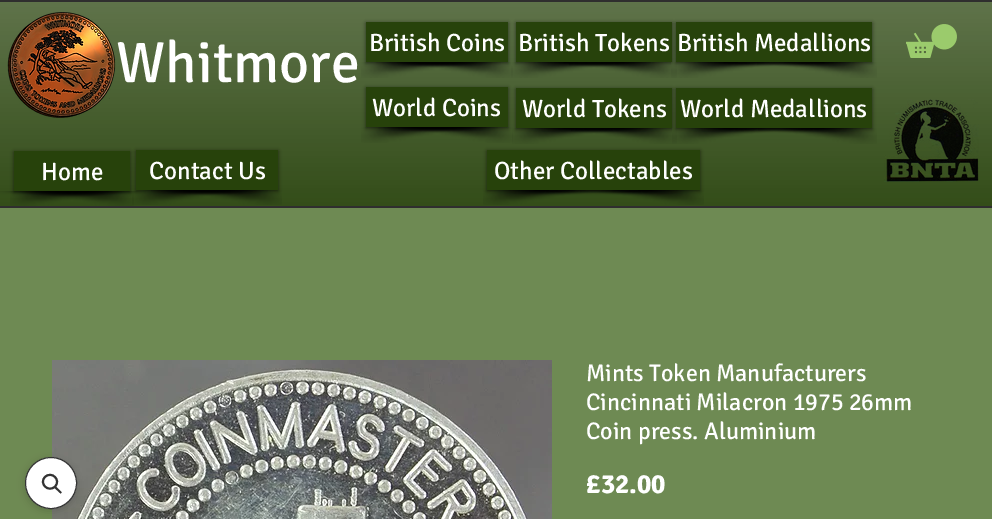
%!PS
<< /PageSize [992 519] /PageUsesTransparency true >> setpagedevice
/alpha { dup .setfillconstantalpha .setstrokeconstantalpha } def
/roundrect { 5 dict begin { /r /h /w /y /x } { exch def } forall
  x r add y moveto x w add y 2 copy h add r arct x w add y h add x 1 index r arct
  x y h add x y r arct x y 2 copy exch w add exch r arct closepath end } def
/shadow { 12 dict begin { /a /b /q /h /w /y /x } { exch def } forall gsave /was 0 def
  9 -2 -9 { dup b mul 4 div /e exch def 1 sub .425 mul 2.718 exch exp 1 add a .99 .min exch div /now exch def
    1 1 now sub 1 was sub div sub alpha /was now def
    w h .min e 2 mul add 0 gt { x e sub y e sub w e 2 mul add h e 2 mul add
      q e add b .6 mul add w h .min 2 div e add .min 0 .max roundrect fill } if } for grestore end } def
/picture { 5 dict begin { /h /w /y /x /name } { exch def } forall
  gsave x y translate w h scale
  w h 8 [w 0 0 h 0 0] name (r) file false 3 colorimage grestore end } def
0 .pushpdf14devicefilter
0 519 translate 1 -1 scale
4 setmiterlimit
0.431 0.541 0.325 setrgbcolor
0 0 992 519 rectfill
0.153 0.259 0.043 setrgbcolor
0 2 992 204 rectfill
(img1.rgb) 0 2 992 204 picture
0.184 0.18 0.18 setrgbcolor
0 0 992 2 rectfill
0 206 992 2 rectfill
(img2.rgb) 7 12 109 106 picture
/Signika-Regular [58 0 0 -58 0 0] selectfont
1 setgray
116 82 moveto (Whitmore) show
(img3.rgb) 361 62 140 16 picture
(img4.rgb) 376 62 137 16 picture
0 setgray
366 23 142 40 0 2 0.6 shadow
0.153 0.259 0.043 setrgbcolor
366 22 142 40 rectfill
/Signika-Regular [25 0 0 -25 0 0] selectfont
1 setgray
369 51 moveto (British Coins) show
(img5.rgb) 511 62 140 16 picture
(img6.rgb) 569 62 108 16 picture
0 setgray
516 23 156 40 0 2 0.6 shadow
0.153 0.259 0.043 setrgbcolor
516 22 156 40 rectfill
1 setgray
518 51 moveto (British Tokens) show
(img7.rgb) 671 62 140 16 picture
(img8.rgb) 757 62 120 16 picture
0 setgray
676 23 196 40 0 2 0.6 shadow
0.153 0.259 0.043 setrgbcolor
676 22 196 40 rectfill
1 setgray
677 51 moveto (British Medallions) show
(img9.rgb) 906 24 51 34 picture
(img10.rgb) 361 127 137 16 picture
(img11.rgb) 378 127 135 16 picture
0 setgray
366 88 142 40 0 2 0.6 shadow
0.153 0.259 0.043 setrgbcolor
366 87 142 40 rectfill
1 setgray
372 116 moveto (World Coins) show
(img12.rgb) 512 128 136 16 picture
(img13.rgb) 571 128 106 16 picture
0 setgray
516 89 156 40 0 2 0.6 shadow
0.153 0.259 0.043 setrgbcolor
516 88 156 40 rectfill
1 setgray
522 117 moveto (World Tokens) show
(img14.rgb) 672 128 136 16 picture
(img15.rgb) 758 128 119 16 picture
0 setgray
676 89 196 40 0 2 0.6 shadow
0.153 0.259 0.043 setrgbcolor
676 88 196 40 rectfill
1 setgray
680 117 moveto (World Medallions) show
(img16.rgb) 884 99 95 83 picture
(img18.rgb) 10 191 136 15 picture
(img17.rgb) 0 191 134 15 picture
0 setgray
14 152 116 40 0 2 0.6 shadow
0.153 0.259 0.043 setrgbcolor
14 151 116 40 rectfill
1 setgray
41 180 moveto (Home) show
(img19.rgb) 132 190 136 15 picture
(img20.rgb) 151 190 131 15 picture
0 setgray
136 151 142 40 0 2 0.6 shadow
0.153 0.259 0.043 setrgbcolor
136 150 142 40 rectfill
1 setgray
149 179 moveto (Contact Us) show
(img21.rgb) 483 190 136 15 picture
(img22.rgb) 580 190 124 15 picture
0 setgray
487 151 213 40 0 2 0.6 shadow
0.153 0.259 0.043 setrgbcolor
487 150 213 40 rectfill
1 setgray
494 179 moveto (Other Collectables) show
(img23.rgb) 52 360 500 159 picture
/Signika-Regular [24 0 0 -24 0 0] selectfont
586 381 moveto (Mints Token Manufacturers) show
586 410 moveto (Cincinnati Milacron 1975 26mm) show
586 439 moveto (Coin press. Aluminium) show
/Signika-Bold [27 0 0 -27 0 0] selectfont
586 493 moveto (£32.00) show
0 setgray
25 459 52 52 26 4 0.15 shadow
1 setgray
newpath 51 483 25.5 0 360 arc closepath gsave fill grestore
0.2 setgray
stroke
2 setlinewidth
newpath 45 477 moveto 51.5 470.5 61.5 480 55 486.5 curveto 48.5 493 38.5 483.5 45 477 curveto closepath stroke
newpath 54 487.5 moveto 55.5 486 lineto 61.5 492 lineto 62 492.5 60.5 494 60 493 curveto closepath fill
.poppdf14devicefilter showpage
